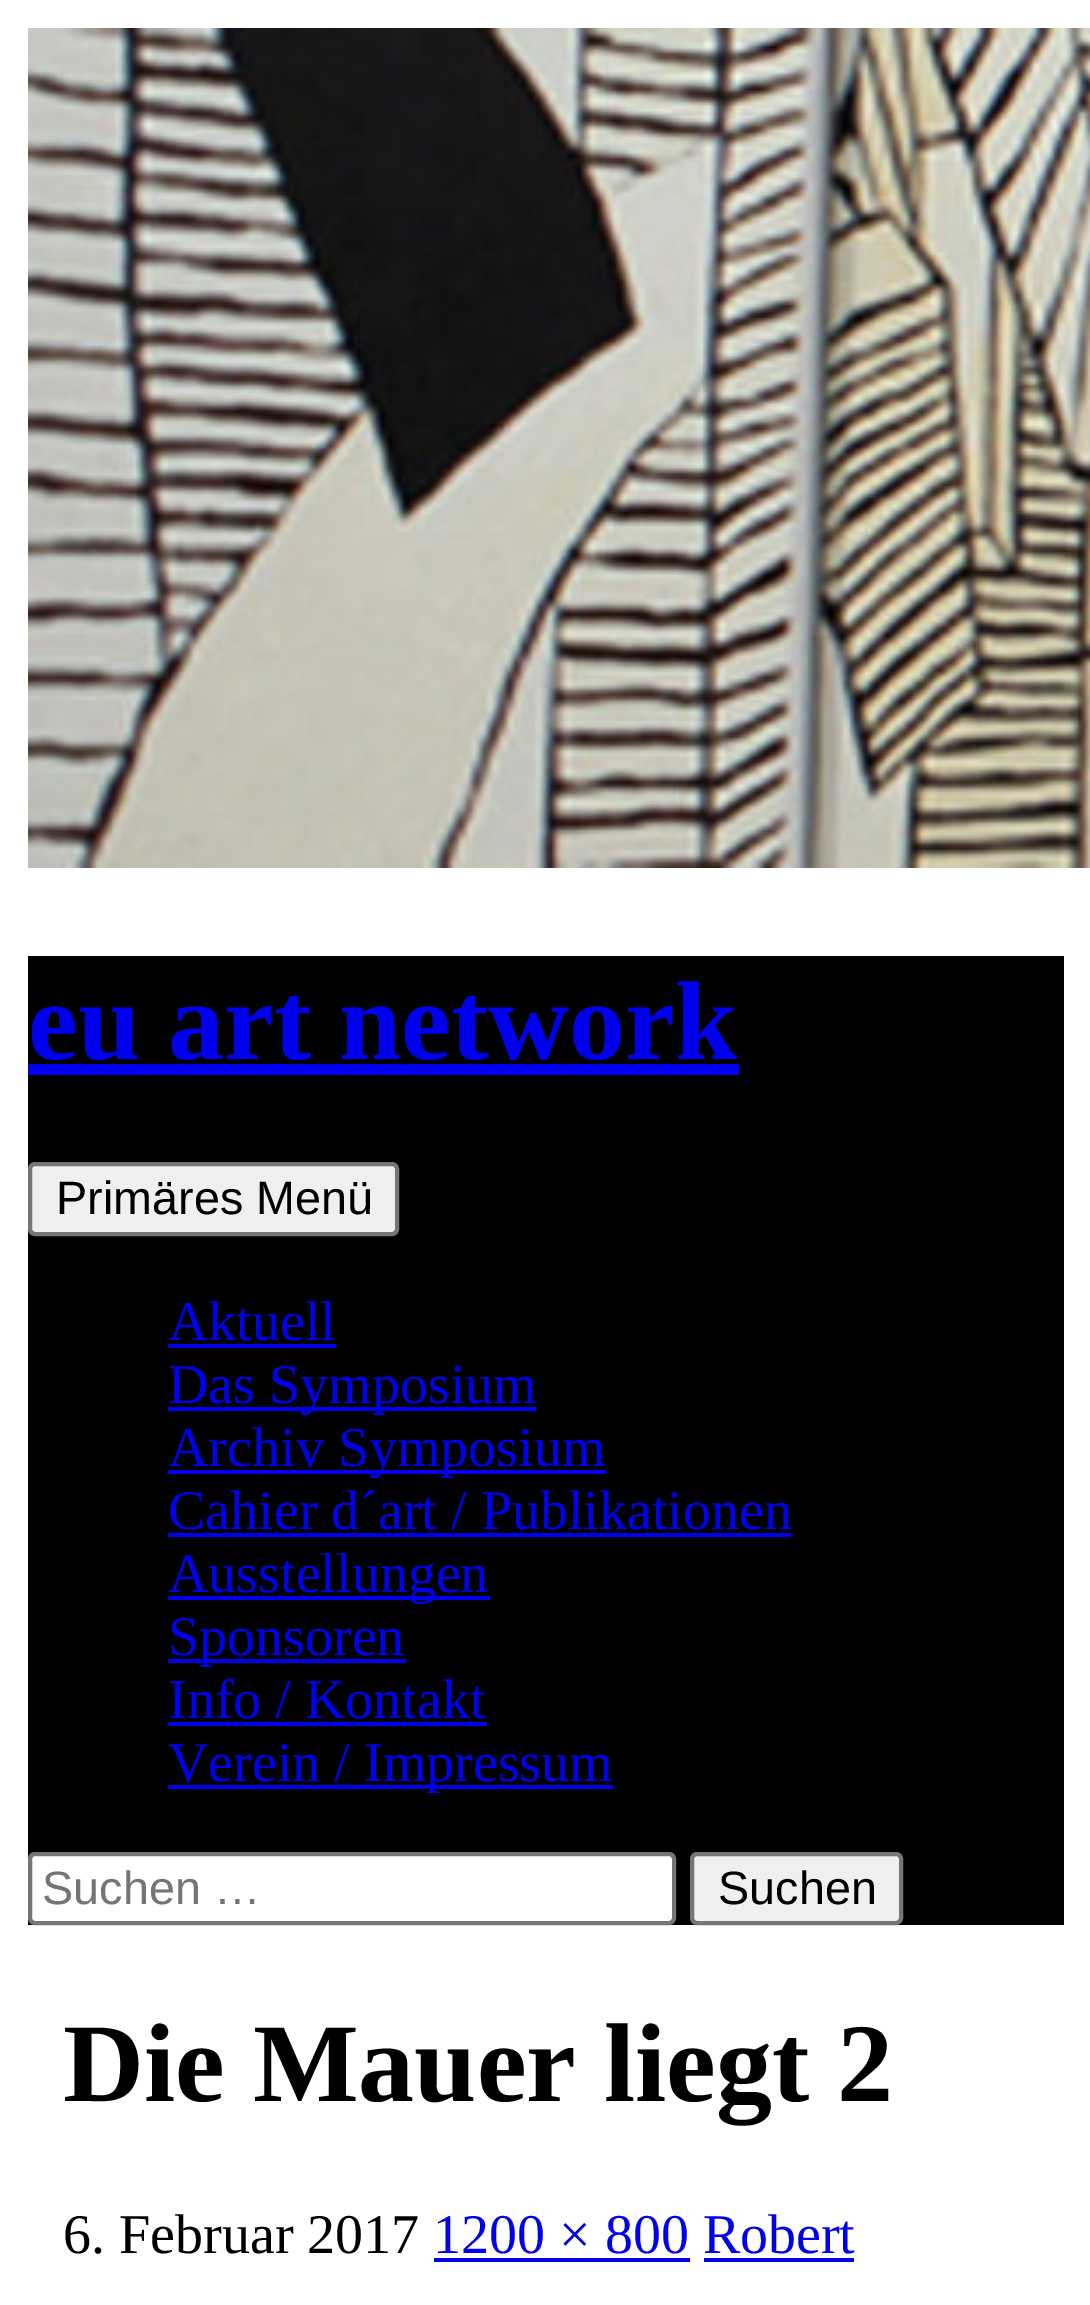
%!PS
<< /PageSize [1090 2305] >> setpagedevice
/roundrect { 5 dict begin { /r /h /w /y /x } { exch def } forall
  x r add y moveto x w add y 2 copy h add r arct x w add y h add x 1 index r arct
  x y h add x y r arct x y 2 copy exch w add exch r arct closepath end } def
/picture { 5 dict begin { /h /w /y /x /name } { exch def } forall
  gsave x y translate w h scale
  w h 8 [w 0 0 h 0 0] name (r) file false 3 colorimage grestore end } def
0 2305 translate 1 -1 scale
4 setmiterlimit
1 setgray
0 0 1090 2305 rectfill
(img1.rgb) 28 28 1062 840 picture
0 setgray
28 956 1036 969 rectfill
/LiberationSerif-Bold [112 0 0 -112 0 0] selectfont
0 0 0.933 setrgbcolor
28 1059 moveto (eu art network) show
28 1064 711 11 rectfill
0.937 setgray
30 1164 367 70 5 roundrect gsave fill grestore
0.463 setgray
4 setlinewidth
stroke
/LiberationSans-Regular [46.75 0 0 -46.75 0 0] selectfont
0 setgray
56 1214 moveto (Primäres Menü) show
/LiberationSerif-Regular [56 0 0 -56 0 0] selectfont
0 0 0.933 setrgbcolor
168 1340 moveto (Aktuell) show
168 1344 168 4 rectfill
168 1407 368 4 rectfill
168 1403 moveto (Das Symposium) show
168 1470 438 4 rectfill
168 1466 moveto (Archiv Symposium) show
168 1529 moveto (Cahier d´art / Publikationen) show
168 1533 623 4 rectfill
168 1596 322 4 rectfill
168 1592 moveto (Ausstellungen) show
168 1659 238 4 rectfill
168 1655 moveto (Sponsoren) show
168 1718 moveto (Info / Kontakt) show
168 1722 319 4 rectfill
168 1785 445 4 rectfill
168 1781 moveto (Verein / Impressum) show
1 setgray
30 1854 644 69 5 roundrect gsave fill grestore
0.463 setgray
stroke
/LiberationSans-Regular [46.75 0 0 -46.75 0 0] selectfont
0.459 setgray
42 1904 moveto (Suchen …) show
0.937 setgray
692 1854 209 69 5 roundrect gsave fill grestore
0.463 setgray
stroke
0 setgray
718 1904 moveto (Suchen) show
/LiberationSerif-Bold [112 0 0 -112 0 0] selectfont
63 2101 moveto (Die Mauer liegt 2) show
/LiberationSerif-Regular [56 0 0 -56 0 0] selectfont
63 2253 moveto (6. Februar 2017) show
0 0 0.933 setrgbcolor
433 2253 moveto (1200 × 800 Robert) show
434 2258 256 4 rectfill
704 2258 150 4 rectfill
showpage
